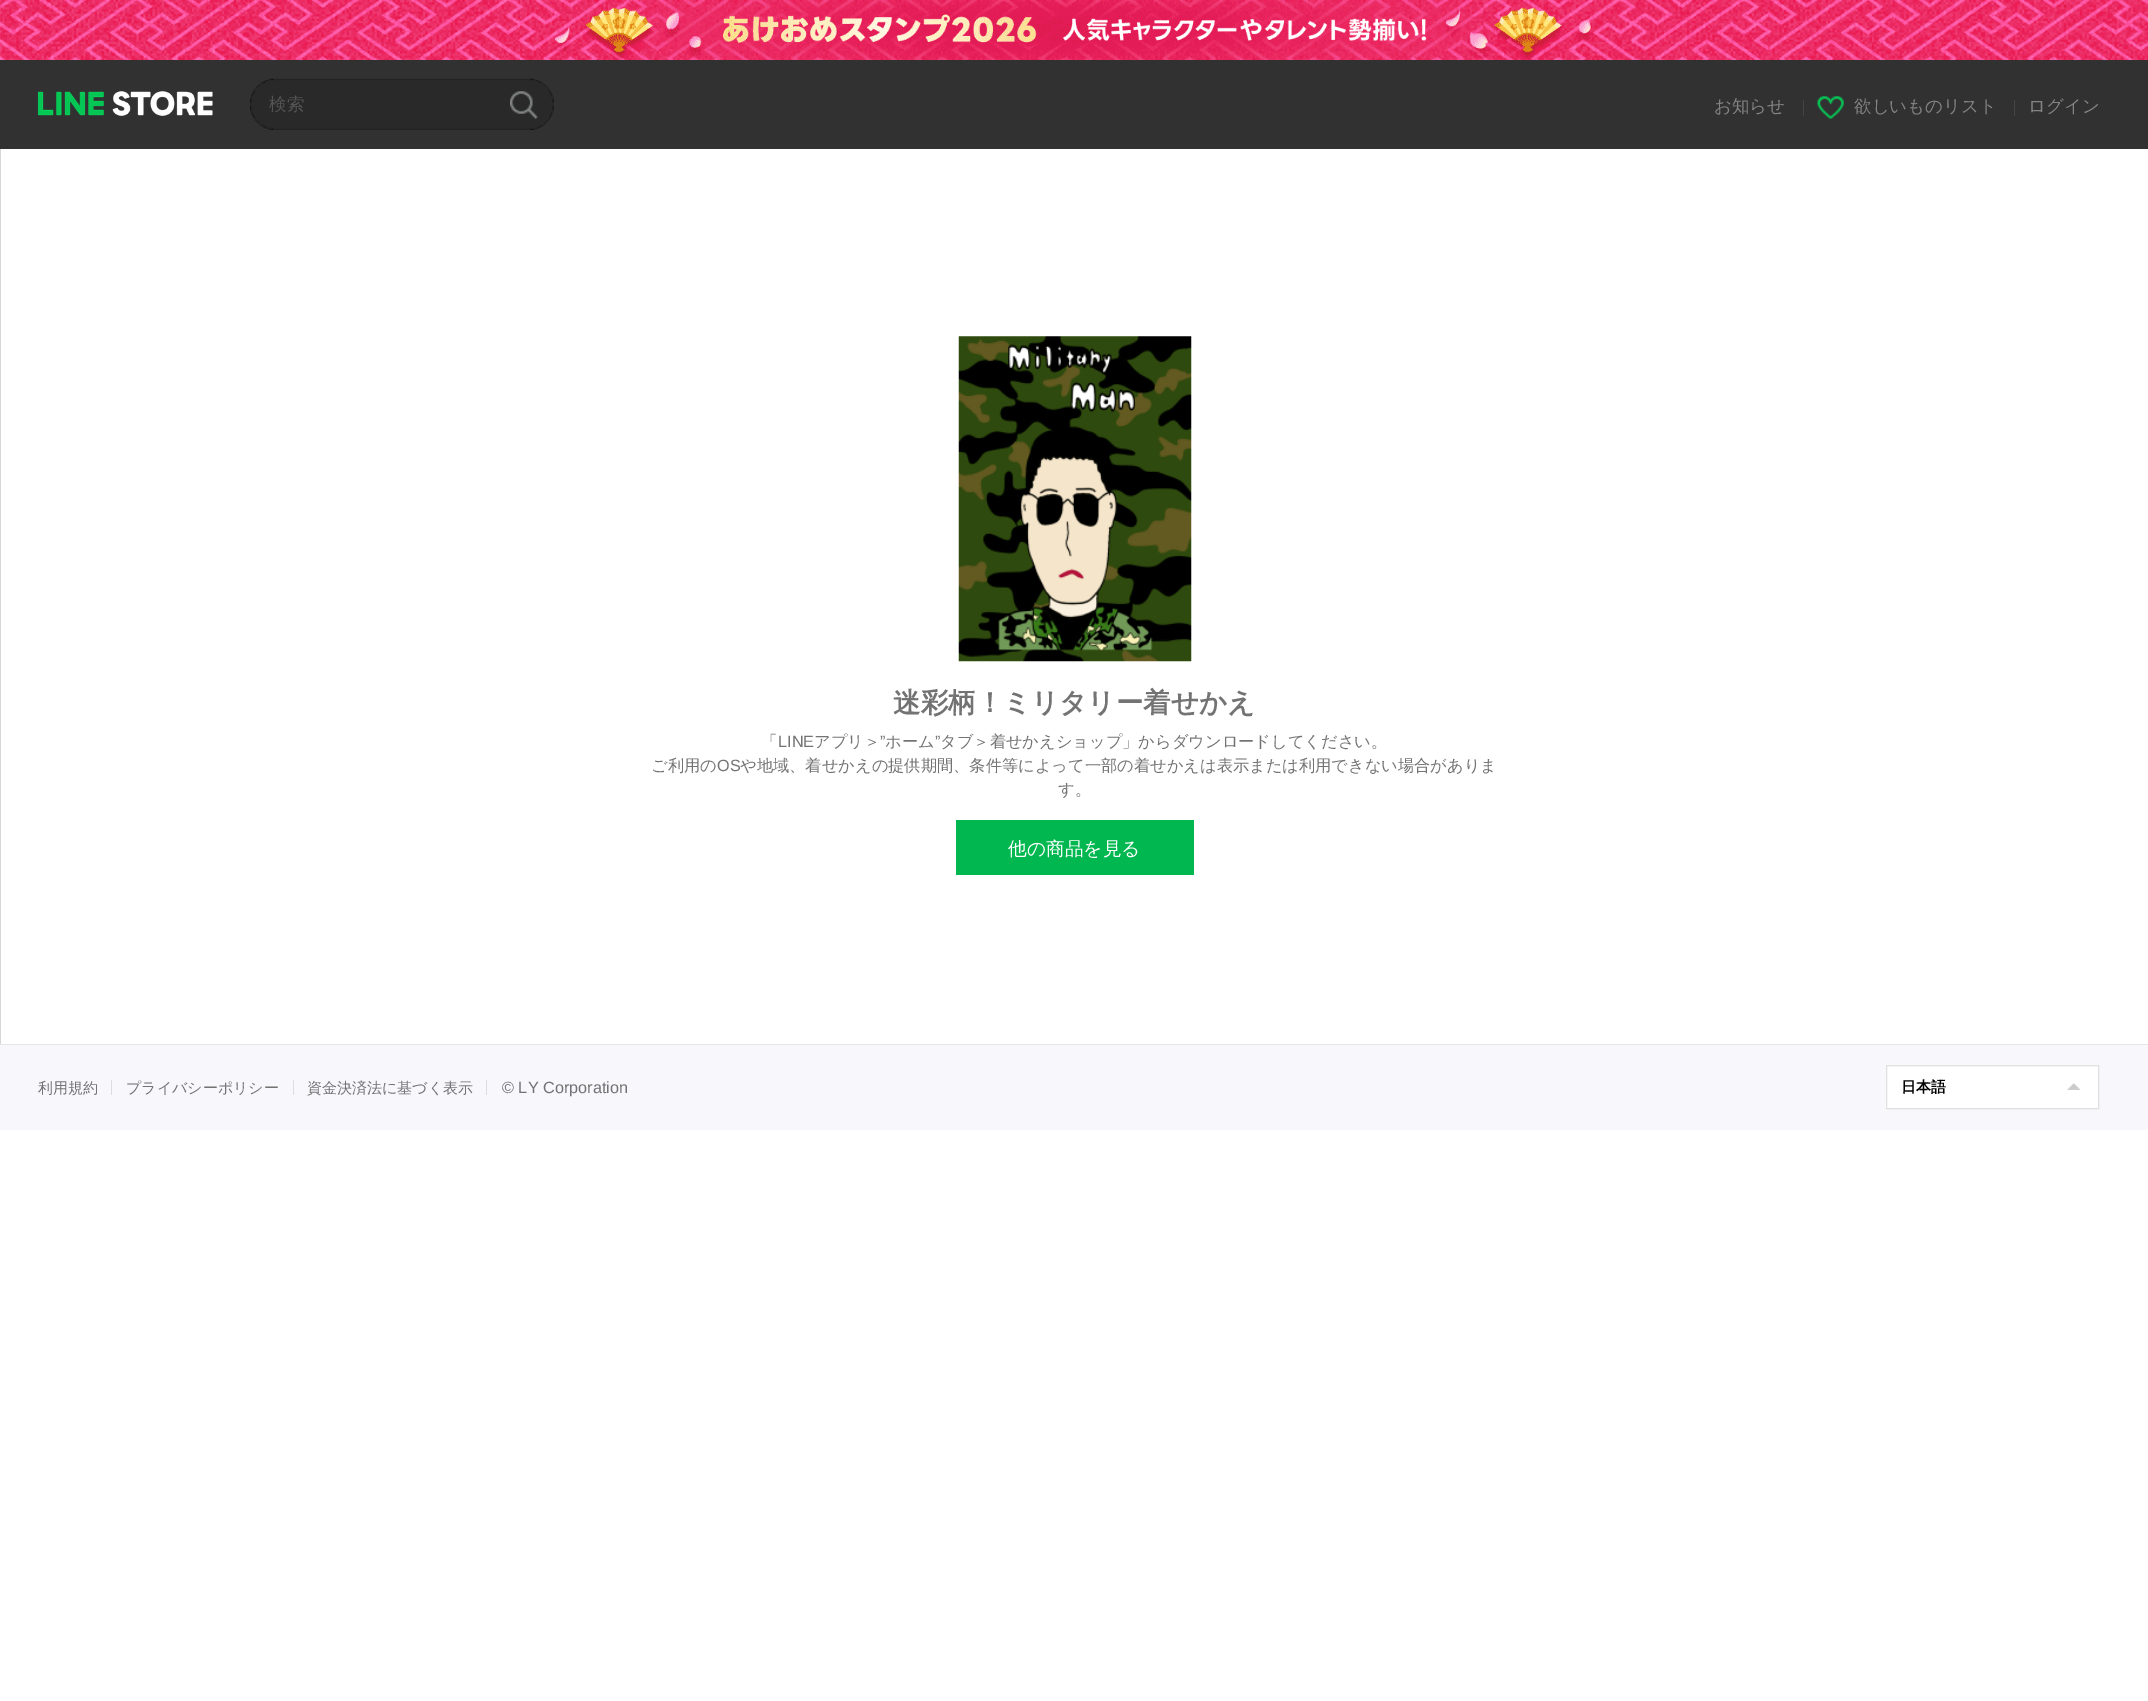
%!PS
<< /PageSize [2148 1701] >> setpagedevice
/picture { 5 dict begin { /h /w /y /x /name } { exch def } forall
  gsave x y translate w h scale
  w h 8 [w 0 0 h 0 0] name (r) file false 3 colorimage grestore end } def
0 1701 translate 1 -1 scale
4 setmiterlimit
1 setgray
0 0 2148 1701 rectfill
(img1.rgb) 0 0 2148 60 picture
0.192 setgray
0 60 2148 89 rectfill
(img2.rgb) 37 91 176 25 picture
(img3.rgb) 250 78 304 52 picture
/WenQuanYiZenHei-Medium [17.5 0 0 -17.5 0 0] selectfont
0.329 setgray
269 110 moveto (検索) show
(img4.rgb) 510 91 28 28 picture
0.518 setgray
1714 112 moveto (お知らせ) show
0.267 setgray
1803 100 1 16 rectfill
(img5.rgb) 1817 96 27 23 picture
0.518 setgray
1854 112 moveto (欲しいものリスト) show
0.267 setgray
2014 100 1 16 rectfill
0.518 setgray
2028 112 moveto (ログイン) show
0.839 setgray
0 149 1 895 rectfill
(img6.rgb) 958 336 234 326 picture
/WenQuanYiZenHei-Bold [27.5 0 0 -27.5 0 0] selectfont
0.451 setgray
893 712 moveto (迷彩柄！ミリタリー着せかえ) show
/WenQuanYiZenHei-Medium [16.25 0 0 -16.25 0 0] selectfont
761 747 moveto (「) show
/LiberationSans-Regular [16.25 0 0 -16.25 0 0] selectfont
778 747 moveto (LINE) show
/WenQuanYiZenHei-Medium [16.25 0 0 -16.25 0 0] selectfont
814 747 moveto (アプリ＞) show
/LiberationSans-Regular [16.25 0 0 -16.25 0 0] selectfont
880 747 moveto (”) show
/WenQuanYiZenHei-Medium [16.25 0 0 -16.25 0 0] selectfont
885 747 moveto (ホーム) show
/LiberationSans-Regular [16.25 0 0 -16.25 0 0] selectfont
935 747 moveto (”) show
/WenQuanYiZenHei-Medium [16.25 0 0 -16.25 0 0] selectfont
940 747 moveto (タブ＞着せかえショップ」からダウンロードしてください。) show
651 771 moveto (ご利用の) show
/LiberationSans-Regular [16.25 0 0 -16.25 0 0] selectfont
717 771 moveto (OS) show
/WenQuanYiZenHei-Medium [16.25 0 0 -16.25 0 0] selectfont
740 771 moveto (や地域、着せかえの提供期間、条件等によって一部の着せかえは表示または利用できない場合がありま) show
1058 795 moveto (す。) show
0 0.722 0.31 setrgbcolor
956 820 238 55 rectfill
/WenQuanYiZenHei-Medium [18.75 0 0 -18.75 0 0] selectfont
1 setgray
1008 855 moveto (他の商品を見る) show
0.969 0.969 0.988 setrgbcolor
0 1045 2148 85 rectfill
0.902 setgray
0 1044 2148 1 rectfill
/WenQuanYiZenHei-Medium [15 0 0 -15 0 0] selectfont
0.451 setgray
38 1093 moveto (利用規約) show
0.867 0.867 0.882 setrgbcolor
111 1080 1 15 rectfill
0.451 setgray
126 1093 moveto (プライバシーポリシー) show
0.867 0.867 0.882 setrgbcolor
293 1080 1 15 rectfill
0.451 setgray
307 1093 moveto (資金決済法に基づく表示) show
0.867 0.867 0.882 setrgbcolor
486 1080 1 15 rectfill
/LiberationSans-Regular [16.25 0 0 -16.25 0 0] selectfont
0.451 setgray
502 1093 moveto (© LY Corporation) show
1 setgray
newpath 1886.5 1065.5 moveto 2098.5 1065.5 lineto 2098.5 1108.5 lineto 1886.5 1108.5 lineto closepath gsave fill grestore
0.878 setgray
stroke
/WenQuanYiZenHei-Bold [15 0 0 -15 0 0] selectfont
0 setgray
1901 1092 moveto (日本語) show
(img7.rgb) 2067 1083 13 7 picture
showpage
